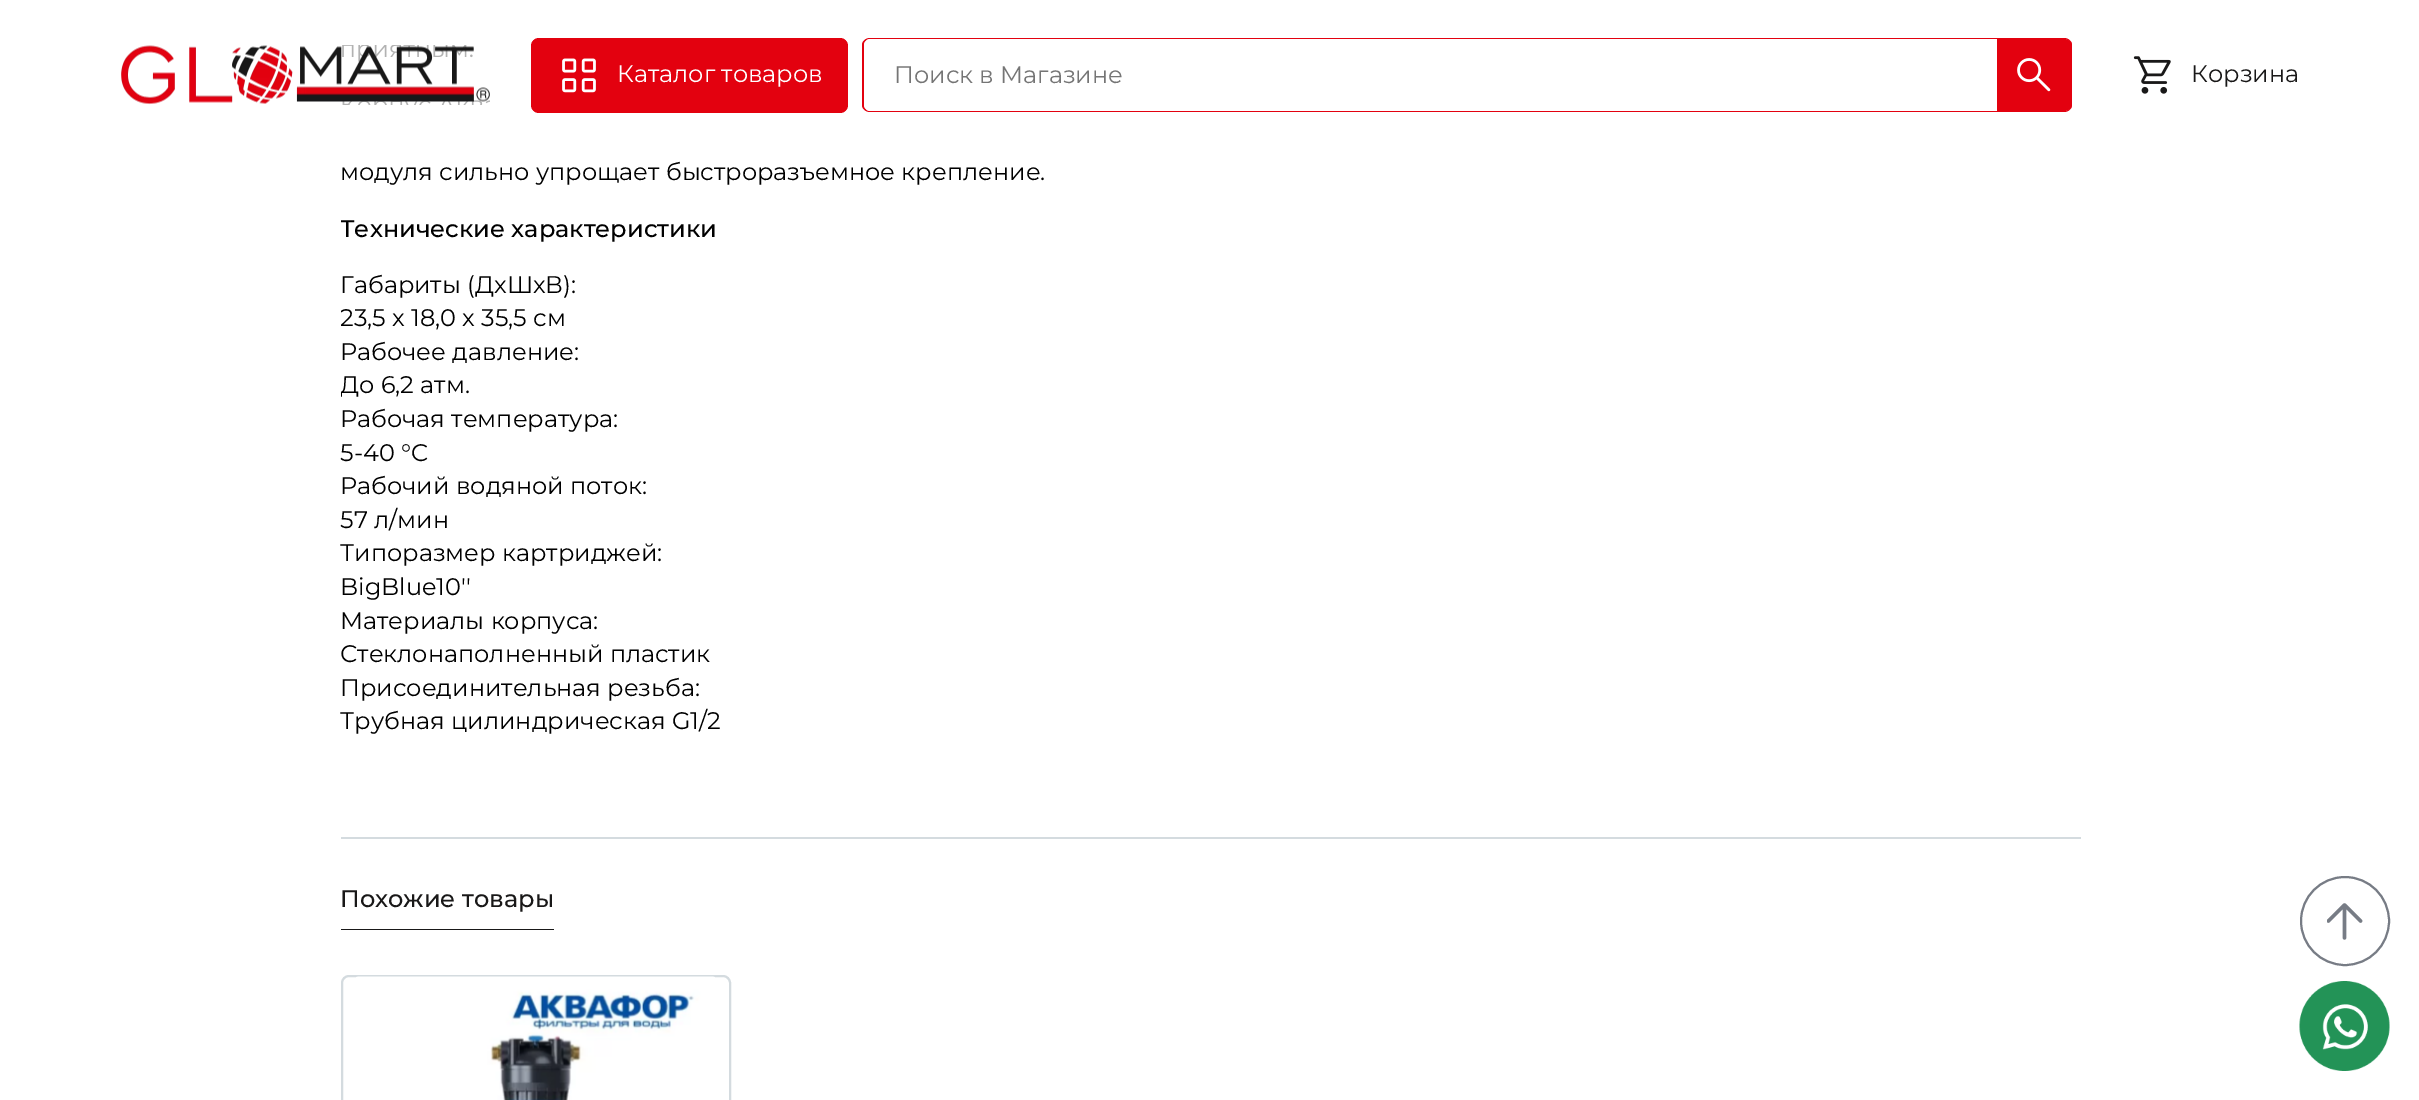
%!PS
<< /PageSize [2419 1100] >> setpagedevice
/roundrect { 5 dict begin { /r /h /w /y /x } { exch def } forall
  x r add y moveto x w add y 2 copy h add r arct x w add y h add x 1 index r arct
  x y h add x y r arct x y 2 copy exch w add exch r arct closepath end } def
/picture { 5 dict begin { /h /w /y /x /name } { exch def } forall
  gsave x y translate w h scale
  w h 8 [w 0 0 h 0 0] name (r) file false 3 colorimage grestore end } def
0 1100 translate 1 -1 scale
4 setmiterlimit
1 setgray
0 0 2419 1100 rectfill
(img1.rgb) 121 45 369 60 picture
0.89 0.004 0.059 setrgbcolor
531 38 317 75 8 roundrect fill
(img2.rgb) 562 58 34 35 picture
/Montserrat-Regular [24 0 0 -24 0 0] selectfont
1 setgray
617 82 moveto (Каталог товаров) show
0.89 0.004 0.059 setrgbcolor
newpath 870 38 moveto 2064 38 lineto 2068 38 2072 41 2072 45 curveto 2072 105 lineto 2072 109 2068 112 2064 112 curveto 870 112 lineto 866 112 862 109 862 105 curveto 862 45 lineto 862 41 866 38 870 38 curveto closepath 870 39 moveto 2064 39 lineto 2068 39 2072 42 2072 45 curveto 2072 105 lineto 2072 108 2068 111 2064 111 curveto 870 111 lineto 867 111 864 108 864 105 curveto 864 45 lineto 864 42 867 39 870 39 curveto closepath eofill
1 setgray
newpath 870 39 moveto 867 39 864 42 864 45 curveto 864 105 lineto 864 108 867 111 870 111 curveto 1997 111 lineto 1997 39 lineto closepath fill
0.459 setgray
894 83 moveto (Поиск в Магазине) show
0.89 0.004 0.059 setrgbcolor
newpath 1997 111 moveto 1997 39 lineto 2064 39 lineto 2068 39 2072 42 2072 45 curveto 2072 105 lineto 2072 108 2068 111 2064 111 curveto closepath fill
(img3.rgb) 2017 58 34 34 picture
(img4.rgb) 2133 56 38 38 picture
0.098 0.094 0.094 setrgbcolor
2191 82 moveto (Корзина) show
0.831 0.859 0.875 setrgbcolor
341 837 1740 2 rectfill
0 setgray
340 180 moveto (модуля сильно упрощает быстроразъемное крепление.) show
gsave
341 0 1740 762 rectclip
/Montserrat-Medium [24 0 0 -24 0 0] selectfont
340 237 moveto (Технические характеристики) show
grestore
340 293 moveto (Габариты \(ДхШхВ\):) show
gsave
341 0 1740 762 rectclip
340 326 moveto (23,5 х 18,0 х 35,5 см) show
grestore
340 360 moveto (Рабочее давление:) show
gsave
341 0 1740 762 rectclip
340 393 moveto (До 6,2 атм.) show
grestore
340 427 moveto (Рабочая температура:) show
340 461 moveto (5-40 °C) show
340 494 moveto (Рабочий водяной поток:) show
340 528 moveto (57 л/мин) show
340 561 moveto (Типоразмер картриджей:) show
340 595 moveto (BigBlue10'') show
340 629 moveto (Материалы корпуса:) show
340 662 moveto (Стеклонаполненный пластик) show
340 696 moveto (Присоединительная резьба:) show
340 729 moveto (Трубная цилиндрическая G1/2) show
0.098 0.094 0.094 setrgbcolor
341 929 213 1 rectfill
/Montserrat-Medium [24 0 0 -24 0 0] selectfont
340 907 moveto (Похожие товары) show
0.831 0.859 0.875 setrgbcolor
2 setlinewidth
342 976 388 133 7 roundrect stroke
(img5.rgb) 356 976 359 124 picture
0.467 0.486 0.522 setrgbcolor
newpath 2345 921 44 0 360 arc closepath stroke
(img6.rgb) 2327 903 36 37 picture
(img7.rgb) 2299 981 91 90 picture
showpage
